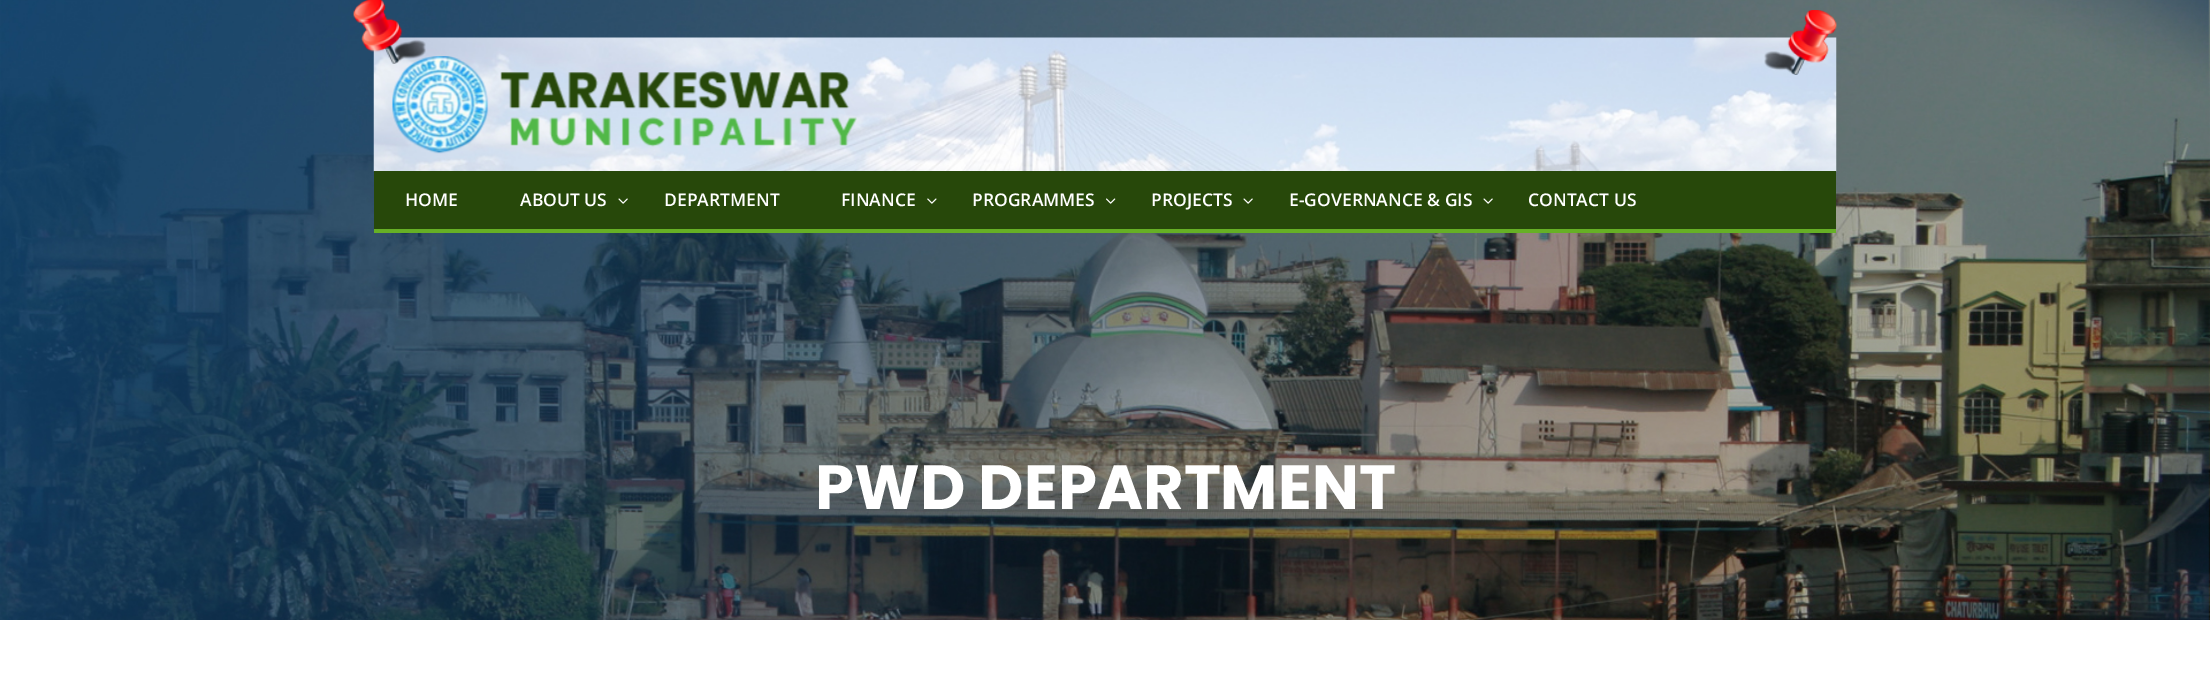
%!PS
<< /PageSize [2210 680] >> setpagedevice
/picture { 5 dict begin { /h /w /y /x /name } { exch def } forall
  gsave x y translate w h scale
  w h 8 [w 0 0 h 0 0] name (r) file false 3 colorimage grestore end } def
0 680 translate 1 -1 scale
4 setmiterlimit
1 setgray
0 0 2210 680 rectfill
(img10.rgb) 0 0 2210 620 picture
(img1.rgb) 373 37 1464 135 picture
(img4.rgb) 392 56 465 98 picture
(img5.rgb) 353 0 73 64 picture
(img2.rgb) 353 0 73 64 picture
(img6.rgb) 1764 10 73 65 picture
(img3.rgb) 1764 10 73 65 picture
0.153 0.282 0.039 setrgbcolor
374 171 1462 58 rectfill
0.4 0.69 0.145 setrgbcolor
374 229 1462 4 rectfill
/OpenSans-SemiBold [17.5 0 0 -17.5 0 0] selectfont
1 setgray
405 206 moveto (HOME) show
520 206 moveto (ABOUT US) show
(img7.rgb) 618 198 10 6 picture
664 206 moveto (DEPARTMENT) show
841 206 moveto (FINANCE) show
(img8.rgb) 927 198 10 6 picture
972 206 moveto (PROGRAMMES) show
(img9.rgb) 1106 198 10 6 picture
1151 206 moveto (PROJECTS) show
(img7.rgb) 1243 198 10 6 picture
1289 206 moveto (E-GOVERNANCE & GIS) show
(img7.rgb) 1483 198 10 6 picture
1528 206 moveto (CONTACT US) show
/Poppins-Bold [62.5 0 0 -62.5 0 0] selectfont
815 509 moveto (PWD DEPARTMENT) show
showpage
